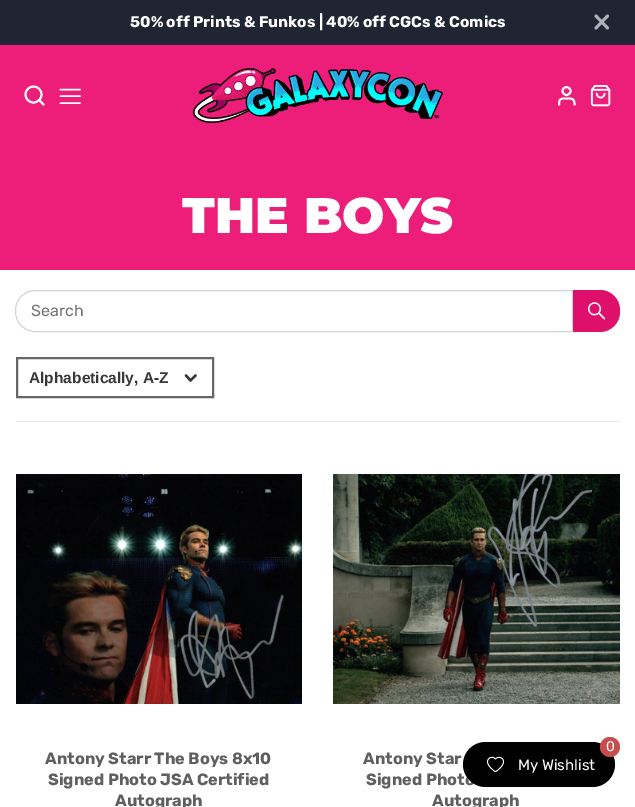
%!PS
<< /PageSize [635 807] >> setpagedevice
/roundrect { 5 dict begin { /r /h /w /y /x } { exch def } forall
  x r add y moveto x w add y 2 copy h add r arct x w add y h add x 1 index r arct
  x y h add x y r arct x y 2 copy exch w add exch r arct closepath end } def
/picture { 5 dict begin { /h /w /y /x /name } { exch def } forall
  gsave x y translate w h scale
  w h 8 [w 0 0 h 0 0] name (r) file false 3 colorimage grestore end } def
0 807 translate 1 -1 scale
4 setmiterlimit
1 setgray
0 0 635 807 rectfill
0.122 0.145 0.196 setrgbcolor
0 0 635 45 rectfill
/Rubik-Bold [15.5 0 0 -15.5 0 0] selectfont
1 setgray
130 27 moveto (50% off Prints & Funkos | 40% off CGCs & Comics) show
0.682 0.694 0.71 setrgbcolor
2.9 setlinewidth
1 setlinecap
1 setlinejoin
newpath 607.5 16 moveto 596 28 lineto 596 16 moveto 607.5 28 lineto stroke
0.929 0.118 0.475 setrgbcolor
0 45 635 225 rectfill
1 setgray
1.9 setlinewidth
0 setlinecap
0 setlinejoin
newpath 33.5 94.5 8 0 360 arc closepath stroke
1 setlinecap
1 setlinejoin
newpath 43.5 104.5 moveto 39 100 lineto stroke
1.6 setlinewidth
newpath 60.5 96 moveto 80 96 lineto 60.5 89.5 moveto 80 89.5 lineto 60.5 103 moveto 80 103 lineto stroke
(img1.rgb) 193 68 250 55 picture
1.9 setlinewidth
0 setlinecap
0 setlinejoin
newpath 566.5 91 4 0 360 arc closepath stroke
1 setlinecap
1 setlinejoin
newpath 574.5 104.5 moveto 574.5 98 572 98.5 566.5 98.5 curveto 561 98.5 559 98 559 104.5 curveto stroke
(img2.rgb) 590 85 21 22 picture
/Montserrat-Black [50 0 0 -50 0 0] selectfont
182 233 moveto (THE BOYS) show
0.82 0.835 0.859 setrgbcolor
1 setlinewidth
0 setlinecap
0 setlinejoin
newpath 35 290.5 moveto 572.5 290.5 lineto 572.5 331.5 lineto 35 331.5 lineto 24 331.5 15.5 323 15.5 312 curveto 15.5 310 lineto 15.5 299 24 290.5 35 290.5 curveto closepath stroke
/Rubik-Light [16 0 0 -16 0 0] selectfont
0.459 setgray
31 316 moveto (Search) show
0.871 0.063 0.42 setrgbcolor
newpath 573 290 moveto 600 290 lineto 611 290 620 299 620 310 curveto 620 312 lineto 620 323 611 332 600 332 curveto 573 332 lineto closepath fill
(img3.rgb) 588 302 17 18 picture
0.918 setgray
16 421 604 1 rectfill
0.4 setgray
2 setlinewidth
17 358 196 39 rectstroke
gsave
29 369 140 17 rectclip
/LiberationSans-Bold [15.5 0 0 -15.5 0 0] selectfont
0.216 setgray
29 383 moveto (Alphabetically, A-Z) show
grestore
0.216 setgray
2.4 setlinewidth
1 setlinecap
1 setlinejoin
newpath 186 375.5 moveto 190.5 380.5 lineto 195.5 375.5 lineto stroke
(img4.rgb) 16 474 286 230 picture
/Rubik-Bold [16.25 0 0 -16.25 0 0] selectfont
0.373 setgray
45 764 moveto (Antony Starr The Boys 8x10) show
48 785 moveto (Signed Photo JSA Certified) show
115 806 moveto (Autograph) show
(img5.rgb) 333 474 287 230 picture
363 764 moveto (Antony Star) show
366 785 moveto (Signed Photo) show
432 806 moveto (Autograph) show
0 setgray
463 742 152 45 22.5 roundrect fill
0.78 0.302 0.302 setrgbcolor
newpath 610 747 10 0 360 arc closepath fill
/Rubik-Light [14 0 0 -14 0 0] selectfont
1 setgray
606 751 moveto (0) show
(img6.rgb) 486 756 19 16 picture
/Rubik-Light [15 0 0 -15 0 0] selectfont
518 770 moveto (My Wishlist) show
showpage
